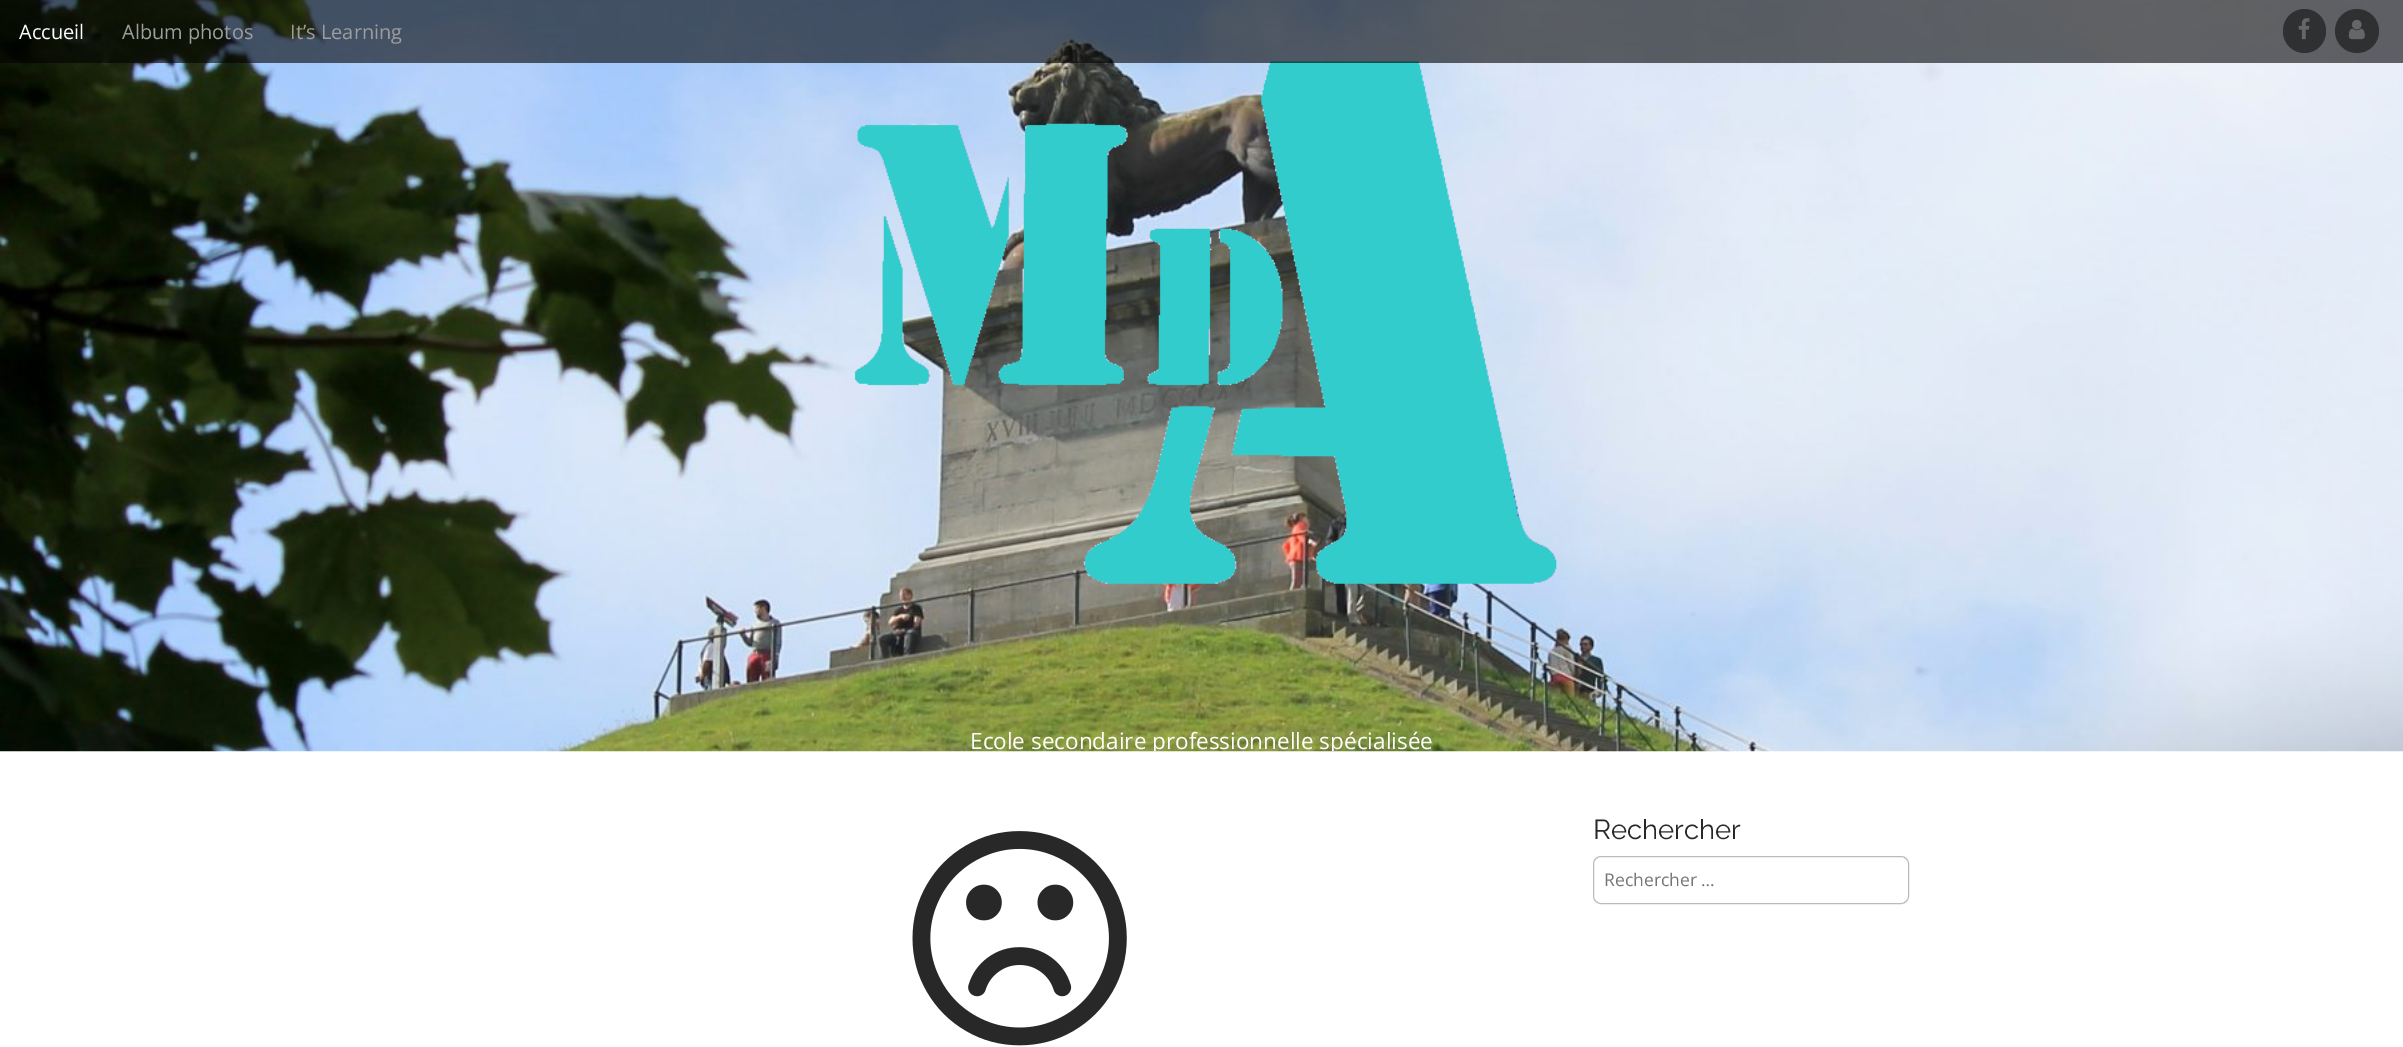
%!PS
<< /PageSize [2403 1047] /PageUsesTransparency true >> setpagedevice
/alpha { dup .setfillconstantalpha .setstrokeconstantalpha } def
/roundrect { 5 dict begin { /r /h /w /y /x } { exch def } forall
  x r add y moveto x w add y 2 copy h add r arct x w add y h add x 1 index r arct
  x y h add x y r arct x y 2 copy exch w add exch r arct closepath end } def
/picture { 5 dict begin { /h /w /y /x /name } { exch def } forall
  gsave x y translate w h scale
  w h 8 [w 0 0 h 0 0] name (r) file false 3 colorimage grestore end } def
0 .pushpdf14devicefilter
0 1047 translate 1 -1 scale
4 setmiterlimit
1 setgray
0 0 2403 1047 rectfill
(img3.rgb) 0 0 2403 752 picture
(img4.rgb) 854 61 703 523 picture
0.6 alpha
0 setgray
0 0 2403 63 rectfill
/OpenSans-Regular [20 0 0 -20 0 0] selectfont
1 alpha
1 setgray
19 39 moveto (Accueil) show
0.616 setgray
122 39 moveto (Album photos) show
290 39 moveto (It’s Learning) show
0.184 0.188 0.196 setrgbcolor
2283 9 43 44 21.5 roundrect fill
(img1.rgb) 2298 18 12 22 picture
newpath 2357 31 22 0 360 arc closepath fill
(img2.rgb) 2348 19 17 21 picture
gsave
0 0 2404 751 rectclip
/OpenSans-Regular [22.5 0 0 -22.5 0 0] selectfont
1 setgray
970 749 moveto (Ecole secondaire professionnelle spécialisée) show
grestore
(img5.rgb) 912 831 215 215 picture
/Raleway-Thin [27.5 0 0 -27.5 0 0] selectfont
0.157 setgray
1593 839 moveto (Rechercher) show
0.733 setgray
1593.5 856.5 315 47 7.5 roundrect stroke
/OpenSans-Regular [17.5 0 0 -17.5 0 0] selectfont
0.459 setgray
1604 886 moveto (Rechercher …) show
.poppdf14devicefilter showpage
